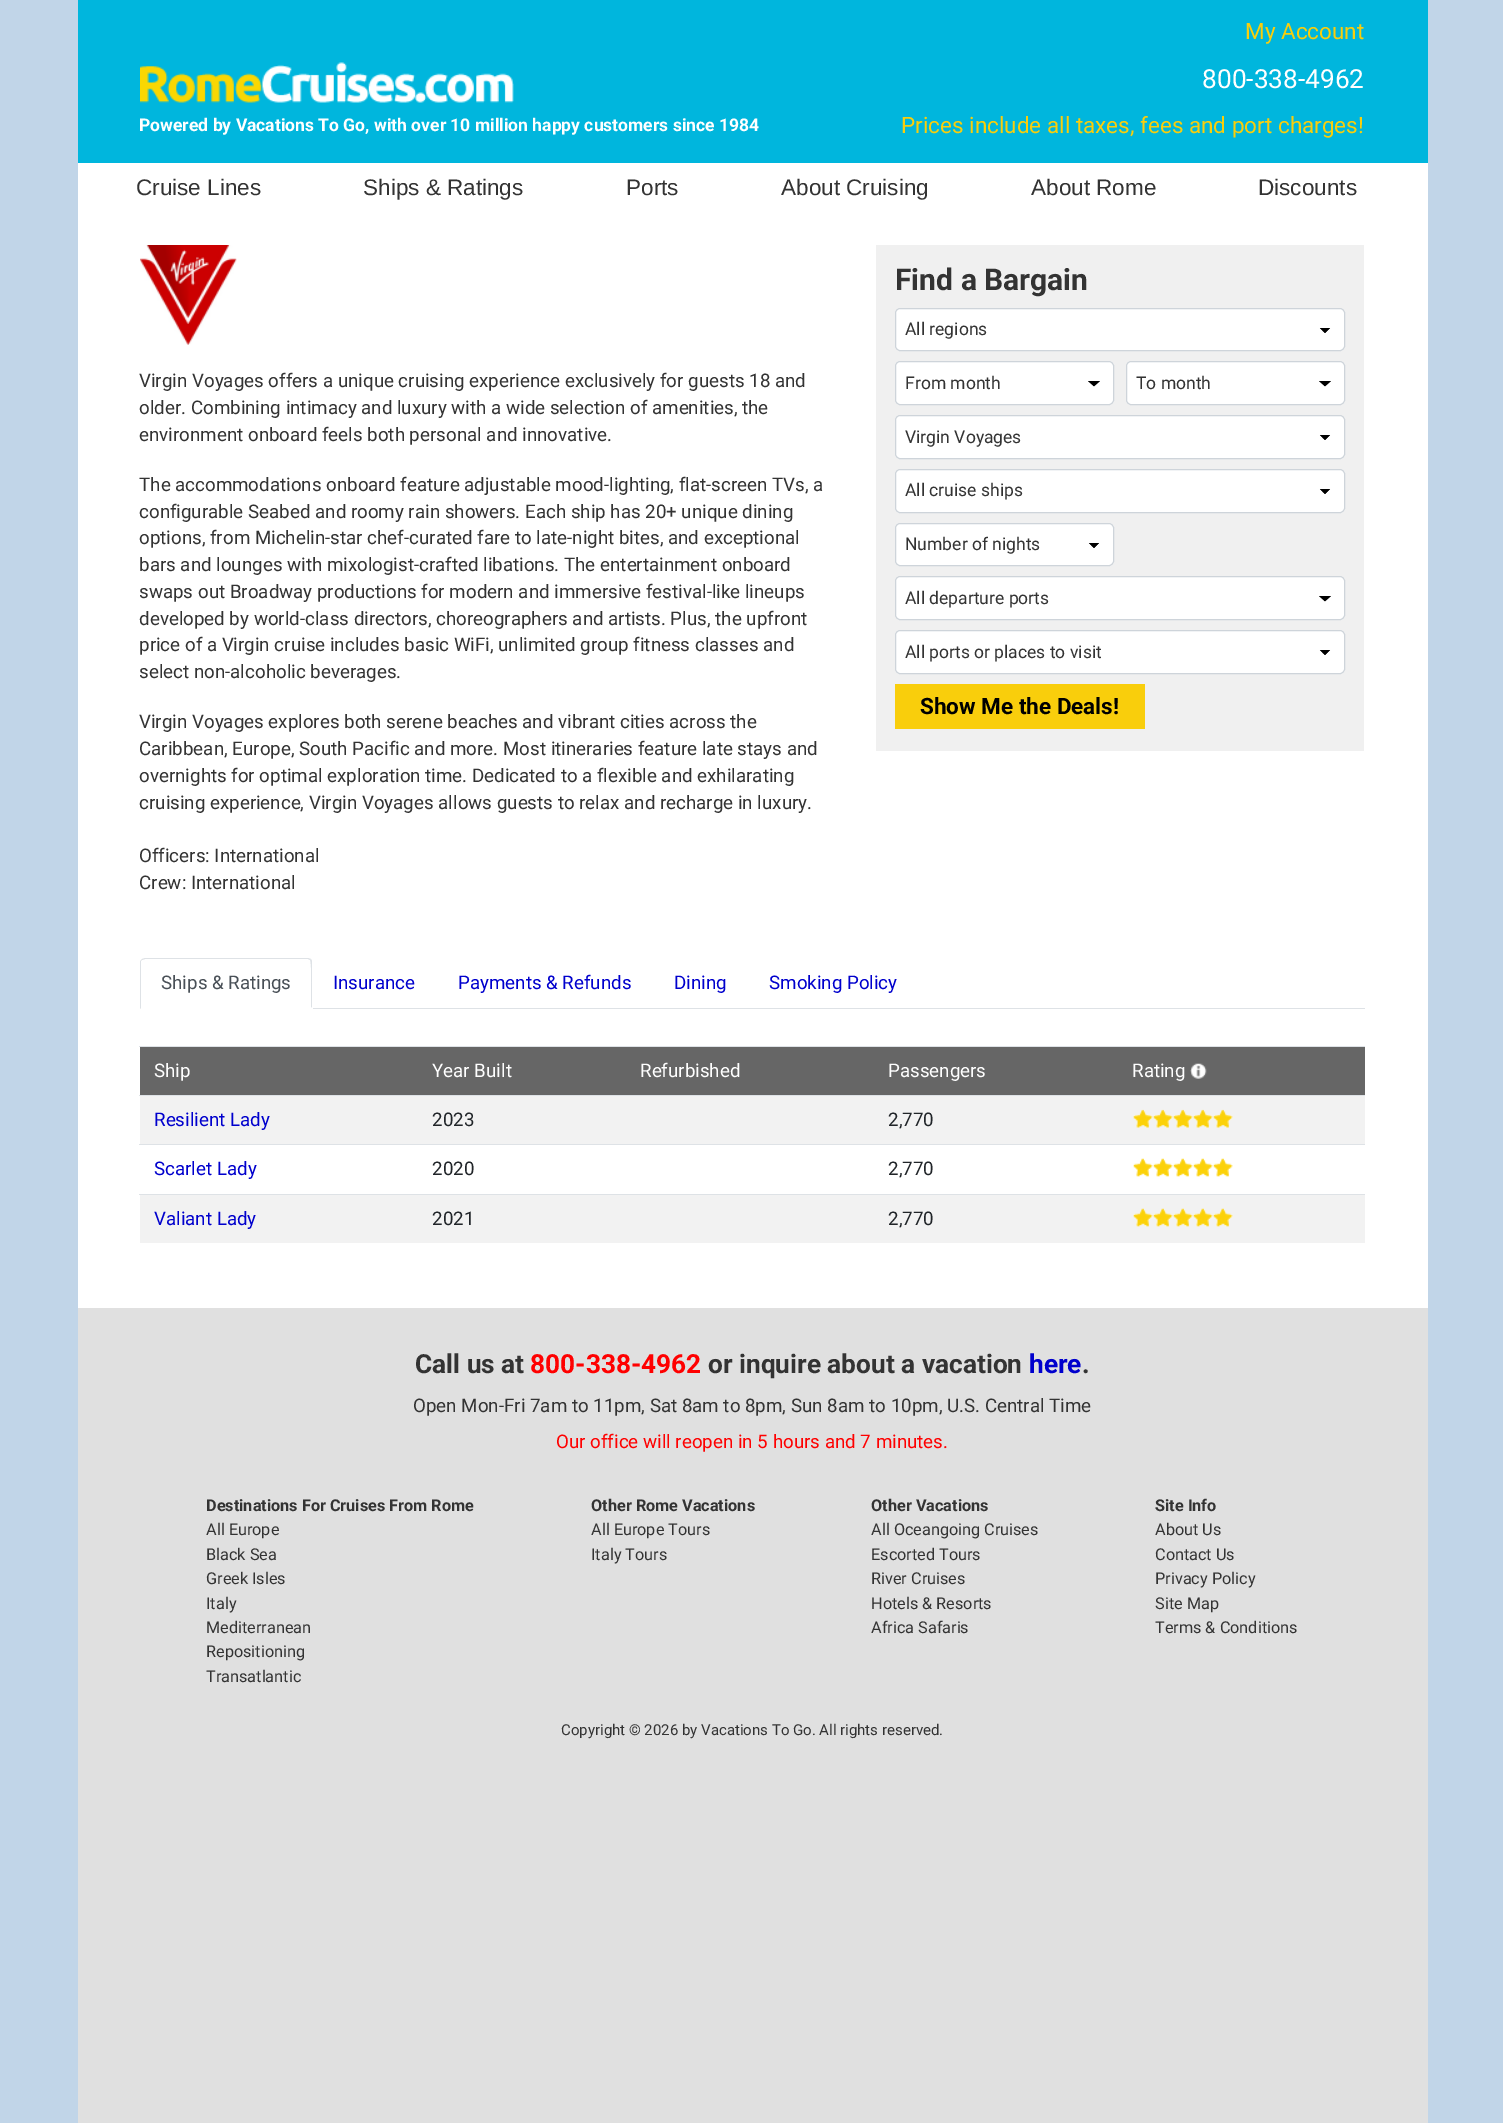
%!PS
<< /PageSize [1503 2123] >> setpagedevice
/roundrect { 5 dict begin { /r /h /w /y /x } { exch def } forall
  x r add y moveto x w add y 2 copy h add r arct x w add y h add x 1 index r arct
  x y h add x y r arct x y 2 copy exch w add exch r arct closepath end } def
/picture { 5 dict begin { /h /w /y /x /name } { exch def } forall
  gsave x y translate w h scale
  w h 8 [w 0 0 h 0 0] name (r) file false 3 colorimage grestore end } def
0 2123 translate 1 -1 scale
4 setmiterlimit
0.757 0.835 0.91 setrgbcolor
0 0 1503 2123 rectfill
0.878 setgray
78 1308 1350 815 rectfill
1 setgray
78 163 1350 1145 rectfill
0 0.714 0.867 setrgbcolor
78 0 1350 163 rectfill
(img1.rgb) 140 62 374 41 picture
/Roboto-Bold [17.5 0 0 -17.5 0 0] selectfont
1 setgray
139 131 moveto (Powered by Vacations To Go, with over 10 million happy customers since 1984) show
/Roboto-Regular [22.5 0 0 -22.5 0 0] selectfont
0.976 0.808 0.047 setrgbcolor
1245 39 moveto (My Account) show
/Roboto-Regular [26.25 0 0 -26.25 0 0] selectfont
1 setgray
1202 88 moveto (800-338-4962) show
/Roboto-Regular [22.5 0 0 -22.5 0 0] selectfont
0.976 0.808 0.047 setrgbcolor
901 133 moveto (Prices include all taxes, fees and port charges!) show
/LiberationSans-Regular [22.5 0 0 -22.5 0 0] selectfont
0.2 setgray
136 195 moveto (Cruise Lines) show
363 195 moveto (Ships & Ratings) show
626 195 moveto (Ports) show
781 195 moveto (About Cruising) show
1031 195 moveto (About Rome) show
1258 195 moveto (Discounts) show
(img2.rgb) 140 245 97 100 picture
/Roboto-Regular [18.75 0 0 -18.75 0 0] selectfont
139 387 moveto (Virgin Voyages offers a unique cruising experience exclusively for guests 18 and) show
139 414 moveto (older. Combining intimacy and luxury with a wide selection of amenities, the) show
139 441 moveto (environment onboard feels both personal and innovative.) show
139 491 moveto (The accommodations onboard feature adjustable mood-lighting, flat-screen TVs, a) show
139 518 moveto (configurable Seabed and roomy rain showers. Each ship has 20+ unique dining) show
139 544 moveto (options, from Michelin-star chef-curated fare to late-night bites, and exceptional) show
139 571 moveto (bars and lounges with mixologist-crafted libations. The entertainment onboard) show
139 598 moveto (swaps out Broadway productions for modern and immersive festival-like lineups) show
139 625 moveto (developed by world-class directors, choreographers and artists. Plus, the upfront) show
139 651 moveto (price of a Virgin cruise includes basic WiFi, unlimited group fitness classes and) show
139 678 moveto (select non-alcoholic beverages.) show
139 728 moveto (Virgin Voyages explores both serene beaches and vibrant cities across the) show
139 755 moveto (Caribbean, Europe, South Pacific and more. Most itineraries feature late stays and) show
139 782 moveto (overnights for optimal exploration time. Dedicated to a flexible and exhilarating) show
139 809 moveto (cruising experience, Virgin Voyages allows guests to relax and recharge in luxury.) show
139 862 moveto (Officers: International) show
139 889 moveto (Crew: International) show
0.941 setgray
876 245 488 506 rectfill
/Roboto-Bold [30 0 0 -30 0 0] selectfont
0.2 setgray
895 290 moveto (Find a Bargain) show
1 setgray
895 308 450 43 5 roundrect fill
gsave newpath 1325 328 moveto 1331 328 lineto 1331 333 lineto 1325 333 lineto closepath clip newpath
<< /ShadingType 2 /ColorSpace /DeviceRGB /Coords [1325 328 1331 334] /Extend [true true] /Function << /FunctionType 3 /Domain [0 1] /Functions [<< /FunctionType 2 /Domain [0 1] /C0 [0 0 0] /C1 [0 0 0] /N 1 >> << /FunctionType 2 /Domain [0 1] /C0 [0 0 0] /C1 [1 1 1] /N 1 >> << /FunctionType 2 /Domain [0 1] /C0 [1 1 1] /C1 [1 1 1] /N 1 >>] /Bounds [0.4 0.5] /Encode [0 1 0 1 0 1] >> >> shfill grestore
gsave newpath 1319 328 moveto 1325 328 lineto 1325 333 lineto 1319 333 lineto closepath clip newpath
<< /ShadingType 2 /ColorSpace /DeviceRGB /Coords [1319 334 1325 328] /Extend [true true] /Function << /FunctionType 3 /Domain [0 1] /Functions [<< /FunctionType 2 /Domain [0 1] /C0 [1 1 1] /C1 [1 1 1] /N 1 >> << /FunctionType 2 /Domain [0 1] /C0 [1 1 1] /C1 [0 0 0] /N 1 >> << /FunctionType 2 /Domain [0 1] /C0 [0 0 0] /C1 [0 0 0] /N 1 >>] /Bounds [0.5 0.6] /Encode [0 1 0 1 0 1] >> >> shfill grestore
0.808 0.831 0.855 setrgbcolor
895.5 308.5 449 42 4.5 roundrect stroke
/Roboto-Regular [17.5 0 0 -17.5 0 0] selectfont
0.2 setgray
905 335 moveto (All regions) show
1 setgray
895 361 219 44 5 roundrect fill
gsave newpath 1094 381 moveto 1100 381 lineto 1100 388 lineto 1094 388 lineto closepath clip newpath
<< /ShadingType 2 /ColorSpace /DeviceRGB /Coords [1094 381 1100 388] /Extend [true true] /Function << /FunctionType 3 /Domain [0 1] /Functions [<< /FunctionType 2 /Domain [0 1] /C0 [0 0 0] /C1 [0 0 0] /N 1 >> << /FunctionType 2 /Domain [0 1] /C0 [0 0 0] /C1 [1 1 1] /N 1 >> << /FunctionType 2 /Domain [0 1] /C0 [1 1 1] /C1 [1 1 1] /N 1 >>] /Bounds [0.4 0.5] /Encode [0 1 0 1 0 1] >> >> shfill grestore
gsave newpath 1088 381 moveto 1094 381 lineto 1094 388 lineto 1088 388 lineto closepath clip newpath
<< /ShadingType 2 /ColorSpace /DeviceRGB /Coords [1088 388 1094 381] /Extend [true true] /Function << /FunctionType 3 /Domain [0 1] /Functions [<< /FunctionType 2 /Domain [0 1] /C0 [1 1 1] /C1 [1 1 1] /N 1 >> << /FunctionType 2 /Domain [0 1] /C0 [1 1 1] /C1 [0 0 0] /N 1 >> << /FunctionType 2 /Domain [0 1] /C0 [0 0 0] /C1 [0 0 0] /N 1 >>] /Bounds [0.5 0.6] /Encode [0 1 0 1 0 1] >> >> shfill grestore
0.808 0.831 0.855 setrgbcolor
895.5 361.5 218 43 4.5 roundrect stroke
0.2 setgray
905 389 moveto (From month) show
1 setgray
1126 361 219 44 5 roundrect fill
gsave newpath 1325 381 moveto 1331 381 lineto 1331 388 lineto 1325 388 lineto closepath clip newpath
<< /ShadingType 2 /ColorSpace /DeviceRGB /Coords [1325 381 1331 388] /Extend [true true] /Function << /FunctionType 3 /Domain [0 1] /Functions [<< /FunctionType 2 /Domain [0 1] /C0 [0 0 0] /C1 [0 0 0] /N 1 >> << /FunctionType 2 /Domain [0 1] /C0 [0 0 0] /C1 [1 1 1] /N 1 >> << /FunctionType 2 /Domain [0 1] /C0 [1 1 1] /C1 [1 1 1] /N 1 >>] /Bounds [0.4 0.5] /Encode [0 1 0 1 0 1] >> >> shfill grestore
gsave newpath 1319 381 moveto 1325 381 lineto 1325 388 lineto 1319 388 lineto closepath clip newpath
<< /ShadingType 2 /ColorSpace /DeviceRGB /Coords [1319 388 1325 381] /Extend [true true] /Function << /FunctionType 3 /Domain [0 1] /Functions [<< /FunctionType 2 /Domain [0 1] /C0 [1 1 1] /C1 [1 1 1] /N 1 >> << /FunctionType 2 /Domain [0 1] /C0 [1 1 1] /C1 [0 0 0] /N 1 >> << /FunctionType 2 /Domain [0 1] /C0 [0 0 0] /C1 [0 0 0] /N 1 >>] /Bounds [0.5 0.6] /Encode [0 1 0 1 0 1] >> >> shfill grestore
0.808 0.831 0.855 setrgbcolor
1126.5 361.5 218 43 4.5 roundrect stroke
0.2 setgray
1136 389 moveto (To month) show
1 setgray
895 415 450 44 5 roundrect fill
gsave newpath 1325 435 moveto 1331 435 lineto 1331 440 lineto 1325 440 lineto closepath clip newpath
<< /ShadingType 2 /ColorSpace /DeviceRGB /Coords [1325 435 1331 441] /Extend [true true] /Function << /FunctionType 3 /Domain [0 1] /Functions [<< /FunctionType 2 /Domain [0 1] /C0 [0 0 0] /C1 [0 0 0] /N 1 >> << /FunctionType 2 /Domain [0 1] /C0 [0 0 0] /C1 [1 1 1] /N 1 >> << /FunctionType 2 /Domain [0 1] /C0 [1 1 1] /C1 [1 1 1] /N 1 >>] /Bounds [0.4 0.5] /Encode [0 1 0 1 0 1] >> >> shfill grestore
gsave newpath 1319 435 moveto 1325 435 lineto 1325 440 lineto 1319 440 lineto closepath clip newpath
<< /ShadingType 2 /ColorSpace /DeviceRGB /Coords [1319 441 1325 435] /Extend [true true] /Function << /FunctionType 3 /Domain [0 1] /Functions [<< /FunctionType 2 /Domain [0 1] /C0 [1 1 1] /C1 [1 1 1] /N 1 >> << /FunctionType 2 /Domain [0 1] /C0 [1 1 1] /C1 [0 0 0] /N 1 >> << /FunctionType 2 /Domain [0 1] /C0 [0 0 0] /C1 [0 0 0] /N 1 >>] /Bounds [0.5 0.6] /Encode [0 1 0 1 0 1] >> >> shfill grestore
0.808 0.831 0.855 setrgbcolor
895.5 415.5 449 43 4.5 roundrect stroke
0.2 setgray
905 443 moveto (Virgin Voyages) show
1 setgray
895 469 450 44 5 roundrect fill
gsave newpath 1325 489 moveto 1331 489 lineto 1331 494 lineto 1325 494 lineto closepath clip newpath
<< /ShadingType 2 /ColorSpace /DeviceRGB /Coords [1325 489 1331 495] /Extend [true true] /Function << /FunctionType 3 /Domain [0 1] /Functions [<< /FunctionType 2 /Domain [0 1] /C0 [0 0 0] /C1 [0 0 0] /N 1 >> << /FunctionType 2 /Domain [0 1] /C0 [0 0 0] /C1 [1 1 1] /N 1 >> << /FunctionType 2 /Domain [0 1] /C0 [1 1 1] /C1 [1 1 1] /N 1 >>] /Bounds [0.4 0.5] /Encode [0 1 0 1 0 1] >> >> shfill grestore
gsave newpath 1319 489 moveto 1325 489 lineto 1325 494 lineto 1319 494 lineto closepath clip newpath
<< /ShadingType 2 /ColorSpace /DeviceRGB /Coords [1319 495 1325 489] /Extend [true true] /Function << /FunctionType 3 /Domain [0 1] /Functions [<< /FunctionType 2 /Domain [0 1] /C0 [1 1 1] /C1 [1 1 1] /N 1 >> << /FunctionType 2 /Domain [0 1] /C0 [1 1 1] /C1 [0 0 0] /N 1 >> << /FunctionType 2 /Domain [0 1] /C0 [0 0 0] /C1 [0 0 0] /N 1 >>] /Bounds [0.5 0.6] /Encode [0 1 0 1 0 1] >> >> shfill grestore
0.808 0.831 0.855 setrgbcolor
895.5 469.5 449 43 4.5 roundrect stroke
0.2 setgray
905 496 moveto (All cruise ships) show
1 setgray
895 523 219 43 5 roundrect fill
gsave newpath 1094 543 moveto 1100 543 lineto 1100 548 lineto 1094 548 lineto closepath clip newpath
<< /ShadingType 2 /ColorSpace /DeviceRGB /Coords [1094 543 1100 549] /Extend [true true] /Function << /FunctionType 3 /Domain [0 1] /Functions [<< /FunctionType 2 /Domain [0 1] /C0 [0 0 0] /C1 [0 0 0] /N 1 >> << /FunctionType 2 /Domain [0 1] /C0 [0 0 0] /C1 [1 1 1] /N 1 >> << /FunctionType 2 /Domain [0 1] /C0 [1 1 1] /C1 [1 1 1] /N 1 >>] /Bounds [0.4 0.5] /Encode [0 1 0 1 0 1] >> >> shfill grestore
gsave newpath 1088 543 moveto 1094 543 lineto 1094 548 lineto 1088 548 lineto closepath clip newpath
<< /ShadingType 2 /ColorSpace /DeviceRGB /Coords [1088 549 1094 543] /Extend [true true] /Function << /FunctionType 3 /Domain [0 1] /Functions [<< /FunctionType 2 /Domain [0 1] /C0 [1 1 1] /C1 [1 1 1] /N 1 >> << /FunctionType 2 /Domain [0 1] /C0 [1 1 1] /C1 [0 0 0] /N 1 >> << /FunctionType 2 /Domain [0 1] /C0 [0 0 0] /C1 [0 0 0] /N 1 >>] /Bounds [0.5 0.6] /Encode [0 1 0 1 0 1] >> >> shfill grestore
0.808 0.831 0.855 setrgbcolor
895.5 523.5 218 42 4.5 roundrect stroke
0.2 setgray
905 550 moveto (Number of nights) show
1 setgray
895 576 450 44 5 roundrect fill
gsave newpath 1325 596 moveto 1331 596 lineto 1331 603 lineto 1325 603 lineto closepath clip newpath
<< /ShadingType 2 /ColorSpace /DeviceRGB /Coords [1325 596 1331 603] /Extend [true true] /Function << /FunctionType 3 /Domain [0 1] /Functions [<< /FunctionType 2 /Domain [0 1] /C0 [0 0 0] /C1 [0 0 0] /N 1 >> << /FunctionType 2 /Domain [0 1] /C0 [0 0 0] /C1 [1 1 1] /N 1 >> << /FunctionType 2 /Domain [0 1] /C0 [1 1 1] /C1 [1 1 1] /N 1 >>] /Bounds [0.4 0.5] /Encode [0 1 0 1 0 1] >> >> shfill grestore
gsave newpath 1319 596 moveto 1325 596 lineto 1325 603 lineto 1319 603 lineto closepath clip newpath
<< /ShadingType 2 /ColorSpace /DeviceRGB /Coords [1319 603 1325 596] /Extend [true true] /Function << /FunctionType 3 /Domain [0 1] /Functions [<< /FunctionType 2 /Domain [0 1] /C0 [1 1 1] /C1 [1 1 1] /N 1 >> << /FunctionType 2 /Domain [0 1] /C0 [1 1 1] /C1 [0 0 0] /N 1 >> << /FunctionType 2 /Domain [0 1] /C0 [0 0 0] /C1 [0 0 0] /N 1 >>] /Bounds [0.5 0.6] /Encode [0 1 0 1 0 1] >> >> shfill grestore
0.808 0.831 0.855 setrgbcolor
895.5 576.5 449 43 4.5 roundrect stroke
0.2 setgray
905 604 moveto (All departure ports) show
1 setgray
895 630 450 44 5 roundrect fill
gsave newpath 1325 650 moveto 1331 650 lineto 1331 655 lineto 1325 655 lineto closepath clip newpath
<< /ShadingType 2 /ColorSpace /DeviceRGB /Coords [1325 650 1331 656] /Extend [true true] /Function << /FunctionType 3 /Domain [0 1] /Functions [<< /FunctionType 2 /Domain [0 1] /C0 [0 0 0] /C1 [0 0 0] /N 1 >> << /FunctionType 2 /Domain [0 1] /C0 [0 0 0] /C1 [1 1 1] /N 1 >> << /FunctionType 2 /Domain [0 1] /C0 [1 1 1] /C1 [1 1 1] /N 1 >>] /Bounds [0.4 0.5] /Encode [0 1 0 1 0 1] >> >> shfill grestore
gsave newpath 1319 650 moveto 1325 650 lineto 1325 655 lineto 1319 655 lineto closepath clip newpath
<< /ShadingType 2 /ColorSpace /DeviceRGB /Coords [1319 656 1325 650] /Extend [true true] /Function << /FunctionType 3 /Domain [0 1] /Functions [<< /FunctionType 2 /Domain [0 1] /C0 [1 1 1] /C1 [1 1 1] /N 1 >> << /FunctionType 2 /Domain [0 1] /C0 [1 1 1] /C1 [0 0 0] /N 1 >> << /FunctionType 2 /Domain [0 1] /C0 [0 0 0] /C1 [0 0 0] /N 1 >>] /Bounds [0.5 0.6] /Encode [0 1 0 1 0 1] >> >> shfill grestore
0.808 0.831 0.855 setrgbcolor
895.5 630.5 449 43 4.5 roundrect stroke
0.2 setgray
905 658 moveto (All ports or places to visit) show
0.976 0.808 0.047 setrgbcolor
895 684 250 45 rectfill
/Roboto-Bold [22.5 0 0 -22.5 0 0] selectfont
0 setgray
920 714 moveto (Show Me the Deals!) show
0.871 0.886 0.902 setrgbcolor
313 1008 1052 1 rectfill
newpath 145 958 moveto 142 959 lineto 142 960 lineto 145 959 lineto 308 959 lineto 310 960 lineto 311 959 lineto 308 958 lineto closepath fill
newpath 312 1008 moveto 312 961 lineto 311 959 lineto 310 960 lineto 312 962 311 1002 311 1007 curveto closepath fill
1 setgray
newpath 312 1009 moveto 140 1009 lineto 141 1008 lineto 311 1008 lineto 311 1007 lineto closepath fill
0.871 0.886 0.902 setrgbcolor
newpath 140 1009 moveto 141 1008 lineto 141 961 lineto 142 960 lineto 142 959 lineto 141 960 140 961 140 962 curveto closepath fill
/Roboto-Regular [18.75 0 0 -18.75 0 0] selectfont
0.286 0.314 0.341 setrgbcolor
161 989 moveto (Ships & Ratings) show
0 0 0.804 setrgbcolor
333 989 moveto (Insurance) show
458 989 moveto (Payments & Refunds) show
674 989 moveto (Dining) show
769 989 moveto (Smoking Policy) show
0.4 setgray
140 1047 1225 48 rectfill
1 setgray
154 1077 moveto (Ship) show
432 1077 moveto (Year Built) show
640 1077 moveto (Refurbished) show
888 1077 moveto (Passengers) show
0.871 0.886 0.902 setrgbcolor
139 1046 1226 1 rectfill
1 setgray
1132 1077 moveto (Rating) show
(img3.rgb) 1190 1063 17 16 picture
0.949 setgray
140 1096 1225 48 rectfill
0.871 0.886 0.902 setrgbcolor
139 1095 1226 1 rectfill
(img4.rgb) 1133 1109 20 19 picture
(img4.rgb) 1153 1109 20 19 picture
(img4.rgb) 1173 1109 20 19 picture
(img5.rgb) 1193 1109 20 19 picture
(img5.rgb) 1213 1109 20 19 picture
0 0 0.804 setrgbcolor
154 1126 moveto (Resilient Lady) show
0.129 0.145 0.161 setrgbcolor
432 1126 moveto (2023) show
888 1126 moveto (2,770) show
0.871 0.886 0.902 setrgbcolor
139 1144 1226 1 rectfill
(img6.rgb) 1133 1158 20 19 picture
(img6.rgb) 1153 1158 20 19 picture
(img6.rgb) 1173 1158 20 19 picture
(img7.rgb) 1193 1158 20 19 picture
(img7.rgb) 1213 1158 20 19 picture
0 0 0.804 setrgbcolor
154 1175 moveto (Scarlet Lady) show
0.129 0.145 0.161 setrgbcolor
432 1175 moveto (2020) show
888 1175 moveto (2,770) show
0.949 setgray
140 1195 1225 48 rectfill
0.871 0.886 0.902 setrgbcolor
139 1194 1226 1 rectfill
(img8.rgb) 1133 1208 20 19 picture
(img8.rgb) 1153 1208 20 19 picture
(img8.rgb) 1173 1208 20 19 picture
(img9.rgb) 1193 1208 20 19 picture
(img9.rgb) 1213 1208 20 19 picture
0 0 0.804 setrgbcolor
154 1225 moveto (Valiant Lady) show
0.129 0.145 0.161 setrgbcolor
432 1225 moveto (2021) show
888 1225 moveto (2,770) show
/Roboto-Bold [26.25 0 0 -26.25 0 0] selectfont
0.2 setgray
415 1373 moveto (Call us at) show
1 0 0 setrgbcolor
530 1373 moveto (800-338-4962) show
0.2 setgray
708 1373 moveto (or inquire about a vacation) show
0 0 0.804 setrgbcolor
1029 1373 moveto (here) show
0.2 setgray
1082 1373 moveto (.) show
/Roboto-Regular [18.75 0 0 -18.75 0 0] selectfont
413 1412 moveto (Open Mon-Fri 7am to 11pm, Sat 8am to 8pm, Sun 8am to 10pm, U.S. Central Time) show
1 0 0 setrgbcolor
556 1448 moveto (Our office will reopen in 5 hours and 7 minutes.) show
/Roboto-Bold [16.25 0 0 -16.25 0 0] selectfont
0.2 setgray
206 1511 moveto (Destinations For Cruises From Rome) show
/Roboto-Regular [16.25 0 0 -16.25 0 0] selectfont
206 1535 moveto (All Europe) show
206 1560 moveto (Black Sea) show
206 1584 moveto (Greek Isles) show
206 1609 moveto (Italy) show
206 1633 moveto (Mediterranean) show
206 1657 moveto (Repositioning) show
206 1682 moveto (Transatlantic) show
/Roboto-Bold [16.25 0 0 -16.25 0 0] selectfont
591 1511 moveto (Other Rome Vacations) show
/Roboto-Regular [16.25 0 0 -16.25 0 0] selectfont
591 1535 moveto (All Europe Tours) show
591 1560 moveto (Italy Tours) show
/Roboto-Bold [16.25 0 0 -16.25 0 0] selectfont
871 1511 moveto (Other Vacations) show
/Roboto-Regular [16.25 0 0 -16.25 0 0] selectfont
871 1535 moveto (All Oceangoing Cruises) show
871 1560 moveto (Escorted Tours) show
871 1584 moveto (River Cruises) show
871 1609 moveto (Hotels & Resorts) show
871 1633 moveto (Africa Safaris) show
/Roboto-Bold [16.25 0 0 -16.25 0 0] selectfont
1155 1511 moveto (Site Info) show
/Roboto-Regular [16.25 0 0 -16.25 0 0] selectfont
1155 1535 moveto (About Us) show
1155 1560 moveto (Contact Us) show
1155 1584 moveto (Privacy Policy) show
1155 1609 moveto (Site Map) show
1155 1633 moveto (Terms & Conditions) show
/Roboto-Regular [15 0 0 -15 0 0] selectfont
561 1735 moveto (Copyright © 2026 by Vacations To Go. All rights reserved.) show
showpage
